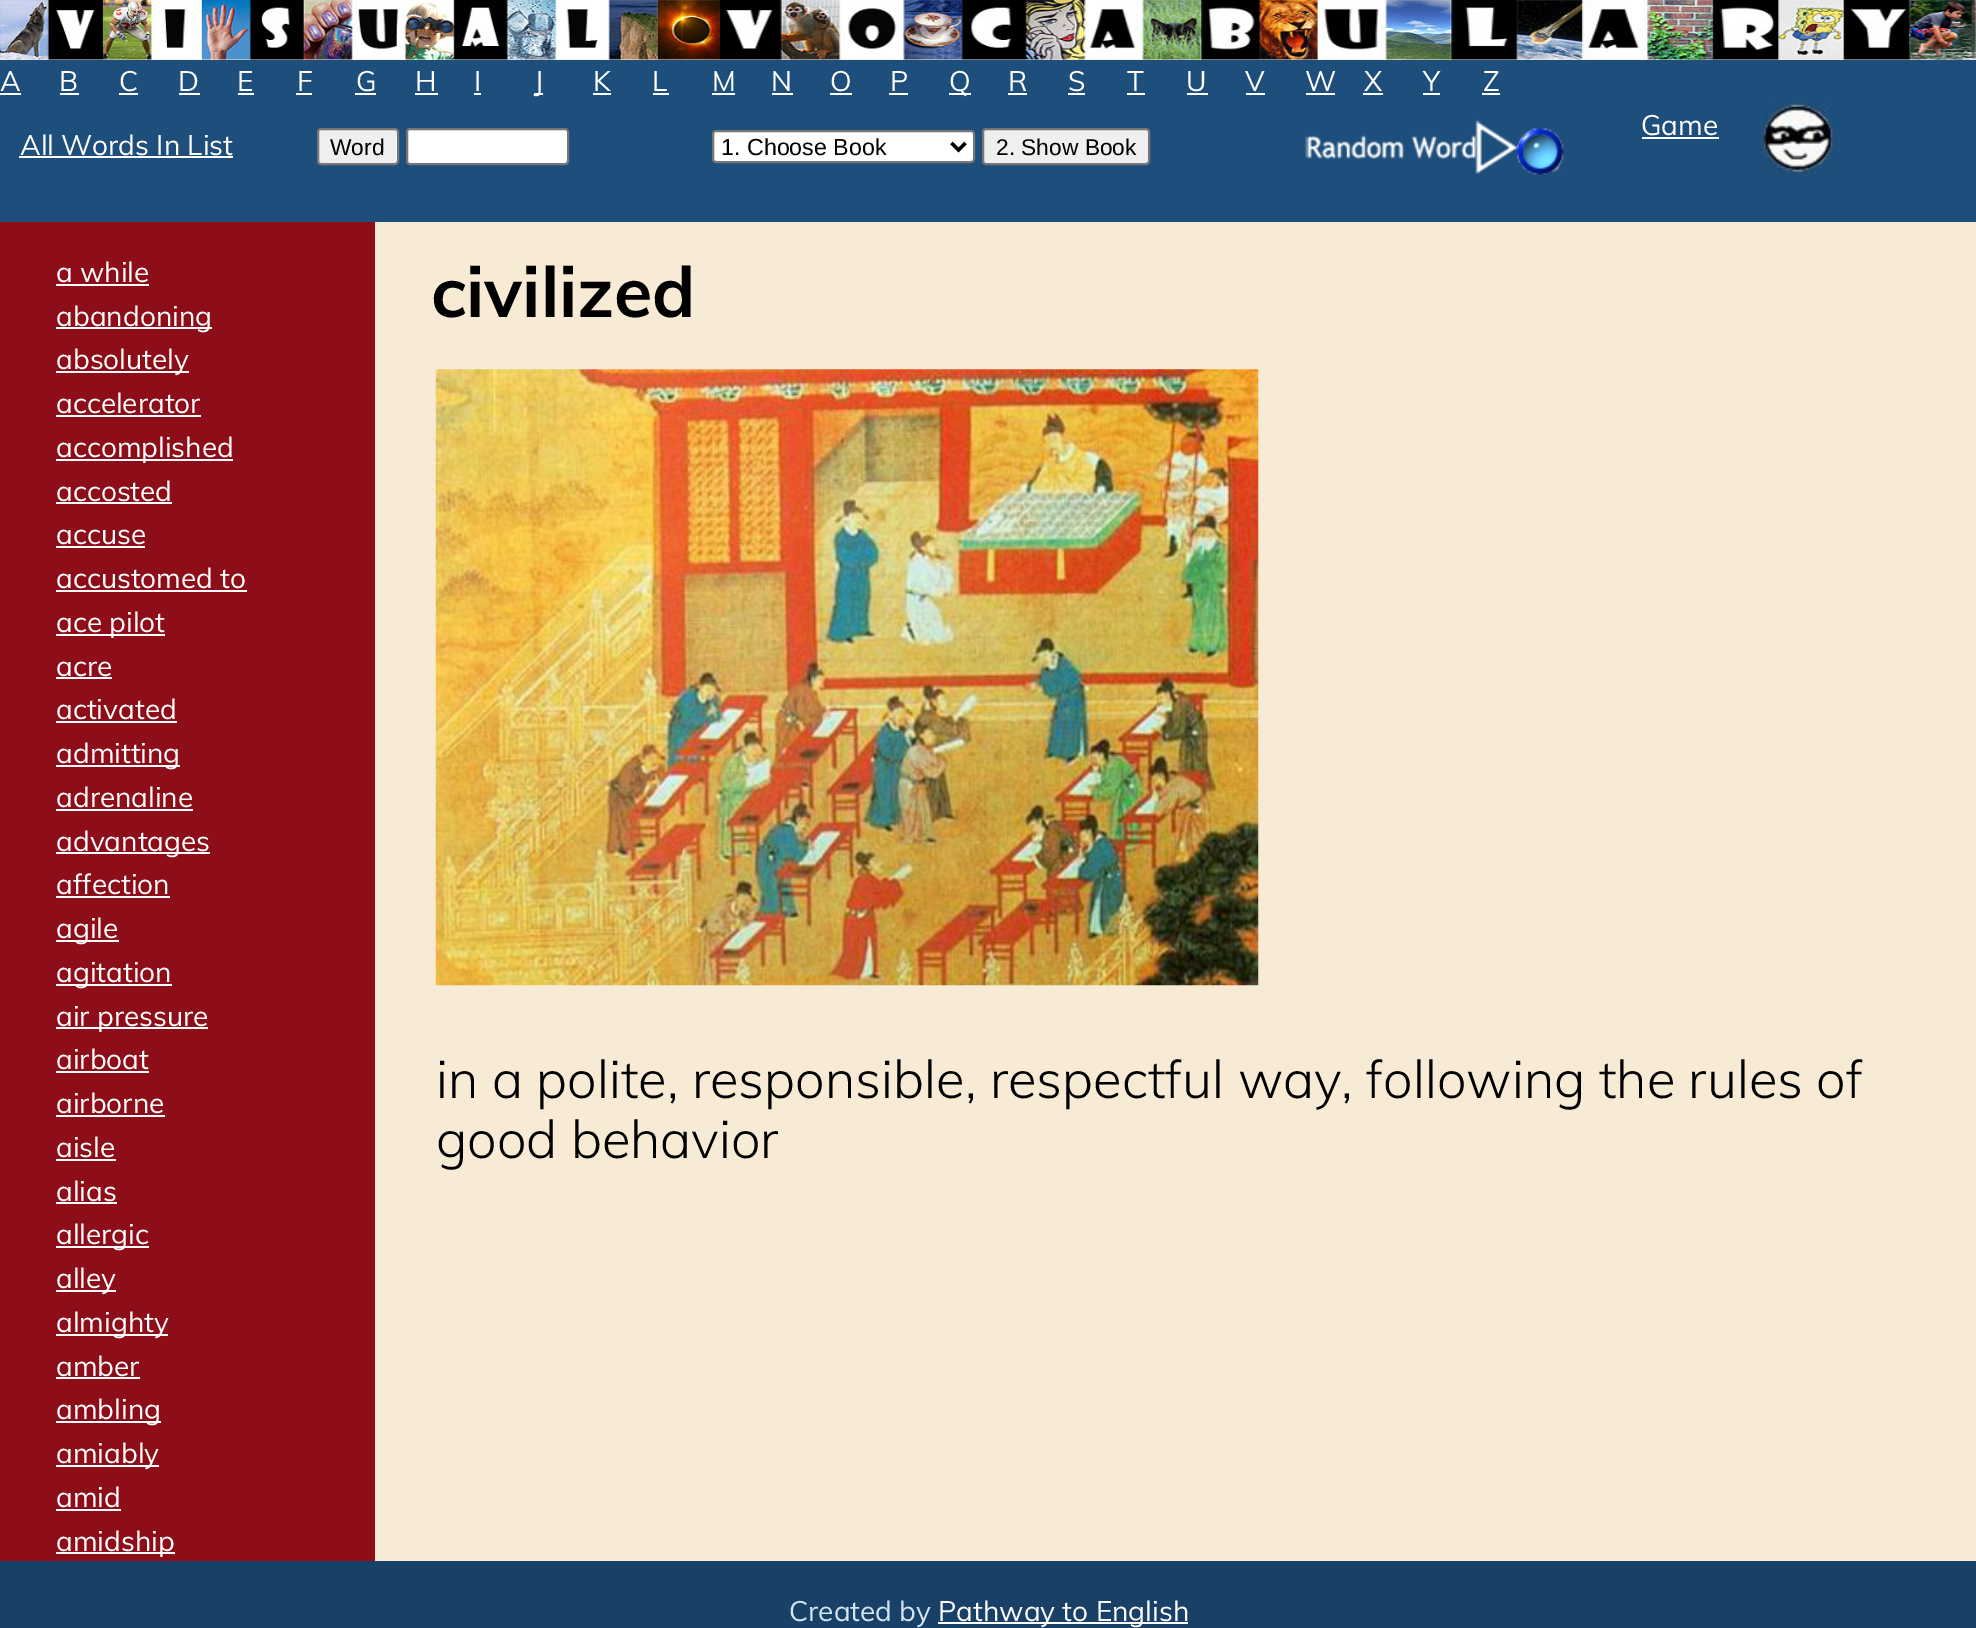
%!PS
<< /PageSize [1976 1628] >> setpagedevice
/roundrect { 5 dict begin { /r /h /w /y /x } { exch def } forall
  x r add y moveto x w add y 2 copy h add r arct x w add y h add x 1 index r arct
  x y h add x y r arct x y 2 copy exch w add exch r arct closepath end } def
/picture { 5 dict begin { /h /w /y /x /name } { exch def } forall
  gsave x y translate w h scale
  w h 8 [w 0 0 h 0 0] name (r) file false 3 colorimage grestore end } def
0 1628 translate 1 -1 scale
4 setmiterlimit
0.969 0.922 0.839 setrgbcolor
0 0 1976 1628 rectfill
(img1.rgb) 0 0 658 60 picture
(img2.rgb) 658 0 660 60 picture
(img3.rgb) 1317 0 659 60 picture
0.118 0.306 0.482 setrgbcolor
0 60 1976 162 rectfill
/Muli-Regular [28 0 0 -28 0 0] selectfont
1 setgray
0 91 moveto (A) show
0 93 21 2 rectfill
59 91 moveto (B) show
60 93 19 2 rectfill
119 91 moveto (C) show
119 93 19 2 rectfill
178 91 moveto (D) show
179 93 21 2 rectfill
237 91 moveto (E) show
238 93 16 2 rectfill
297 91 moveto (F) show
296 93 16 2 rectfill
356 91 moveto (G) show
355 93 21 2 rectfill
415 91 moveto (H) show
415 93 23 2 rectfill
474 91 moveto (I) show
474 93 7 2 rectfill
534 93 9 2 rectfill
534 91 moveto (J) show
593 91 moveto (K) show
593 93 18 2 rectfill
652 91 moveto (L) show
653 93 16 2 rectfill
712 91 moveto (M) show
712 93 23 2 rectfill
771 91 moveto (N) show
772 93 21 2 rectfill
830 91 moveto (O) show
830 93 22 2 rectfill
890 91 moveto (P) show
889 93 19 2 rectfill
949 93 22 2 rectfill
949 91 moveto (Q) show
1008 91 moveto (R) show
1008 93 19 2 rectfill
1068 91 moveto (S) show
1068 93 17 2 rectfill
1127 91 moveto (T) show
1127 93 18 2 rectfill
1186 91 moveto (U) show
1187 93 21 2 rectfill
1245 91 moveto (V) show
1246 93 19 2 rectfill
1305 91 moveto (W) show
1306 93 29 2 rectfill
1364 91 moveto (X) show
1363 93 20 2 rectfill
1423 91 moveto (Y) show
1423 93 17 2 rectfill
1483 91 moveto (Z) show
1482 93 18 2 rectfill
20 155 moveto (All Words In List) show
19 156 214 2 rectfill
0.937 setgray
318 129 80 35 3 roundrect gsave fill grestore
0.463 setgray
2 setlinewidth
stroke
/LiberationSans-Regular [22.75 0 0 -22.75 0 0] selectfont
0 setgray
330 155 moveto (Word) show
1 setgray
407 129 161 35 3 roundrect gsave fill grestore
0.463 setgray
stroke
1 setgray
713 131 261 31 3 roundrect gsave fill grestore
0.463 setgray
stroke
0 setgray
3.5 setlinewidth
newpath 951.5 143 moveto 958.5 150 lineto 965.5 143 lineto stroke
/LiberationSans-Regular [23.25 0 0 -23.25 0 0] selectfont
721 155 moveto (1. Choose Book) show
0.937 setgray
983 129 166 35 3 roundrect gsave fill grestore
0.463 setgray
2 setlinewidth
stroke
/LiberationSans-Regular [22.75 0 0 -22.75 0 0] selectfont
0 setgray
996 155 moveto (2. Show Book) show
(img4.rgb) 1305 119 260 56 picture
/Muli-Regular [28 0 0 -28 0 0] selectfont
1 setgray
1641 135 moveto (Game) show
1642 137 77 2 rectfill
(img5.rgb) 1760 103 76 71 picture
0.553 0.051 0.098 setrgbcolor
0 222 375 1339 rectfill
1 setgray
56 282 moveto (a while) show
56 284 93 2 rectfill
56 327 156 2 rectfill
56 326 moveto (abandoning) show
56 371 133 2 rectfill
56 369 moveto (absolutely) show
56 413 moveto (accelerator) show
56 415 145 2 rectfill
56 459 177 2 rectfill
56 457 moveto (accomplished) show
56 501 moveto (accosted) show
56 502 116 2 rectfill
56 544 moveto (accuse) show
56 546 89 2 rectfill
56 588 moveto (accustomed to) show
56 590 191 2 rectfill
56 634 109 2 rectfill
56 632 moveto (ace pilot) show
56 676 moveto (acre) show
56 677 56 2 rectfill
56 719 moveto (activated) show
56 721 121 2 rectfill
56 765 124 2 rectfill
56 763 moveto (admitting) show
56 807 moveto (adrenaline) show
56 809 137 2 rectfill
56 852 154 2 rectfill
56 851 moveto (advantages) show
56 894 moveto (affection) show
56 896 114 2 rectfill
56 940 63 2 rectfill
56 938 moveto (agile) show
56 984 116 2 rectfill
56 982 moveto (agitation) show
56 1027 152 2 rectfill
56 1026 moveto (air pressure) show
56 1069 moveto (airboat) show
56 1071 93 2 rectfill
56 1113 moveto (airborne) show
56 1115 109 2 rectfill
56 1157 moveto (aisle) show
56 1159 60 2 rectfill
56 1201 moveto (alias) show
56 1202 61 2 rectfill
56 1246 93 2 rectfill
56 1244 moveto (allergic) show
56 1290 60 2 rectfill
56 1288 moveto (alley) show
56 1334 112 2 rectfill
56 1332 moveto (almighty) show
56 1376 moveto (amber) show
56 1377 84 2 rectfill
56 1421 105 2 rectfill
56 1419 moveto (ambling) show
56 1465 103 2 rectfill
56 1463 moveto (amiably) show
56 1507 moveto (amid) show
56 1509 65 2 rectfill
56 1552 119 2 rectfill
56 1551 moveto (amidship) show
/Muli-Bold [70 0 0 -70 0 0] selectfont
0 setgray
431 317 moveto (civilized) show
(img6.rgb) 435 369 824 617 picture
/Muli-Light [52.5 0 0 -52.5 0 0] selectfont
436 1098 moveto (in a polite, responsible, respectful way, following the rules of) show
436 1158 moveto (good behavior) show
0.098 0.255 0.404 setrgbcolor
0 1561 1976 67 rectfill
/Muli-Regular [28 0 0 -28 0 0] selectfont
0.831 0.902 0.957 setrgbcolor
789 1621 moveto (Created by) show
1 setgray
938 1622 250 2 rectfill
938 1621 moveto (Pathway to English) show
showpage
